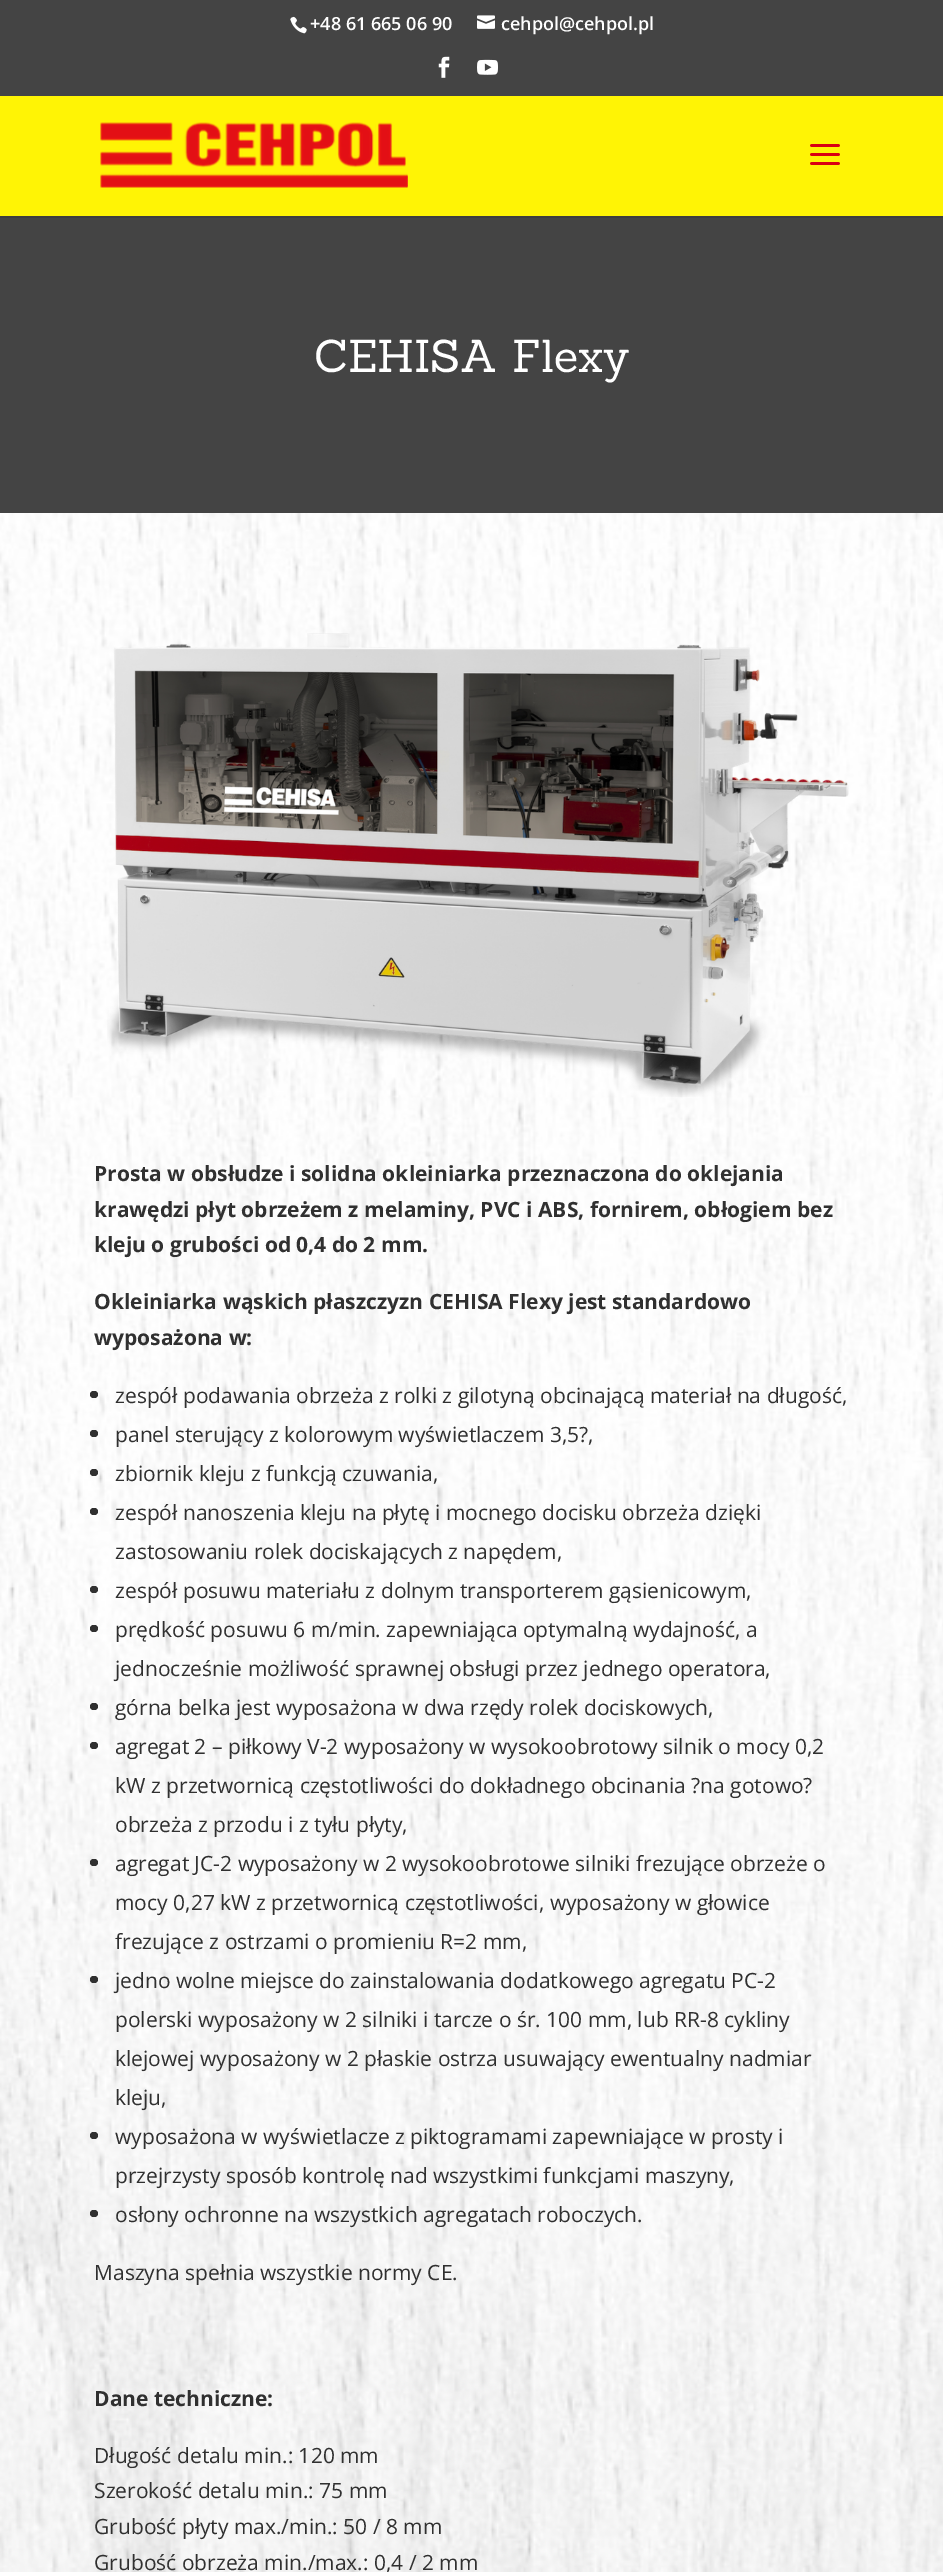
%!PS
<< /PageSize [943 2572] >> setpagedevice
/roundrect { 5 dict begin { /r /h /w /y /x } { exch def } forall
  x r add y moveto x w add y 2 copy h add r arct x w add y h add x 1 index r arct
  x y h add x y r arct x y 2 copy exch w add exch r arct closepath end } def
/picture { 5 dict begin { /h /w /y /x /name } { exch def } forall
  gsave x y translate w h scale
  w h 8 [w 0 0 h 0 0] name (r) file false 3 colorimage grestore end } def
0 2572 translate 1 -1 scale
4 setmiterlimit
0.267 setgray
0 0 943 2572 rectfill
(img1.rgb) 290 16 17 18 picture
/OpenSans-SemiBold [18 0 0 -18 0 0] selectfont
1 setgray
310 30 moveto (+48 61 665 06 90) show
(img2.rgb) 477 15 18 14 picture
501 30 moveto (cehpol@cehpol.pl) show
(img3.rgb) 438 56 12 22 picture
(img4.rgb) 477 59 21 16 picture
0.239 setgray
newpath 0 216 moveto 0 218 lineto 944 218 lineto 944 98 lineto 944 216 lineto closepath fill
1 0.957 0.02 setrgbcolor
0 96 943 120 rectfill
(img5.rgb) 100 122 308 66 picture
(img6.rgb) 810 144 30 21 picture
/Sanchez-Regular [45 0 0 -45 0 0] selectfont
1 setgray
314 372 moveto (CEHISA Flexy) show
(img7.rgb) 0 513 943 2059 picture
(img8.rgb) 107 633 742 464 picture
/OpenSans-Bold [21 0 0 -21 0 0] selectfont
0.188 setgray
94 1181 moveto (Prosta w obsłudze i solidna okleiniarka przeznaczona do oklejania) show
94 1217 moveto (krawędzi płyt obrzeżem z melaminy, PVC i ABS, fornirem, obłogiem bez) show
94 1252 moveto (kleju o grubości od 0,4 do 2 mm.) show
94 1309 moveto (Okleiniarka wąskich płaszczyzn CEHISA Flexy jest standardowo) show
94 1345 moveto (wyposażona w:) show
90 1391 8 7 3.5 roundrect fill
/OpenSans-Regular [21 0 0 -21 0 0] selectfont
115 1403 moveto (zespół podawania obrzeża z rolki z gilotyną obcinającą materiał na długość,) show
90 1430 8 7 3.5 roundrect fill
115 1442 moveto (panel sterujący z kolorowym wyświetlaczem 3,5?,) show
90 1469 8 7 3.5 roundrect fill
115 1481 moveto (zbiornik kleju z funkcją czuwania,) show
90 1508 8 7 3.5 roundrect fill
115 1520 moveto (zespół nanoszenia kleju na płytę i mocnego docisku obrzeża dzięki) show
115 1559 moveto (zastosowaniu rolek dociskających z napędem,) show
90 1586 8 7 3.5 roundrect fill
115 1598 moveto (zespół posuwu materiału z dolnym transporterem gąsienicowym,) show
90 1625 8 7 3.5 roundrect fill
115 1637 moveto (prędkość posuwu 6 m/min. zapewniająca optymalną wydajność, a) show
115 1676 moveto (jednocześnie możliwość sprawnej obsługi przez jednego operatora,) show
90 1703 8 7 3.5 roundrect fill
115 1715 moveto (górna belka jest wyposażona w dwa rzędy rolek dociskowych,) show
90 1742 8 7 3.5 roundrect fill
115 1754 moveto (agregat 2 – piłkowy V-2 wyposażony w wysokoobrotowy silnik o mocy 0,2) show
115 1793 moveto (kW z przetwornicą częstotliwości do dokładnego obcinania ?na gotowo?) show
115 1832 moveto (obrzeża z przodu i z tyłu płyty,) show
90 1859 8 7 3.5 roundrect fill
115 1871 moveto (agregat JC-2 wyposażony w 2 wysokoobrotowe silniki frezujące obrzeże o) show
115 1910 moveto (mocy 0,27 kW z przetwornicą częstotliwości, wyposażony w głowice) show
115 1949 moveto (frezujące z ostrzami o promieniu R=2 mm,) show
90 1976 8 7 3.5 roundrect fill
115 1988 moveto (jedno wolne miejsce do zainstalowania dodatkowego agregatu PC-2) show
115 2027 moveto (polerski wyposażony w 2 silniki i tarcze o śr. 100 mm, lub RR-8 cykliny) show
115 2066 moveto (klejowej wyposażony w 2 płaskie ostrza usuwający ewentualny nadmiar) show
115 2105 moveto (kleju,) show
90 2132 8 7 3.5 roundrect fill
115 2144 moveto (wyposażona w wyświetlacze z piktogramami zapewniające w prosty i) show
115 2183 moveto (przejrzysty sposób kontrolę nad wszystkimi funkcjami maszyny,) show
90 2210 8 7 3.5 roundrect fill
115 2222 moveto (osłony ochronne na wszystkich agregatach roboczych.) show
94 2280 moveto (Maszyna spełnia wszystkie normy CE.) show
/OpenSans-Bold [21 0 0 -21 0 0] selectfont
94 2406 moveto (Dane techniczne:) show
/OpenSans-Regular [21 0 0 -21 0 0] selectfont
94 2463 moveto (Długość detalu min.: 120 mm) show
94 2498 moveto (Szerokość detalu min.: 75 mm) show
94 2534 moveto (Grubość płyty max./min.: 50 / 8 mm) show
94 2570 moveto (Grubość obrzeża min./max.: 0,4 / 2 mm) show
showpage
